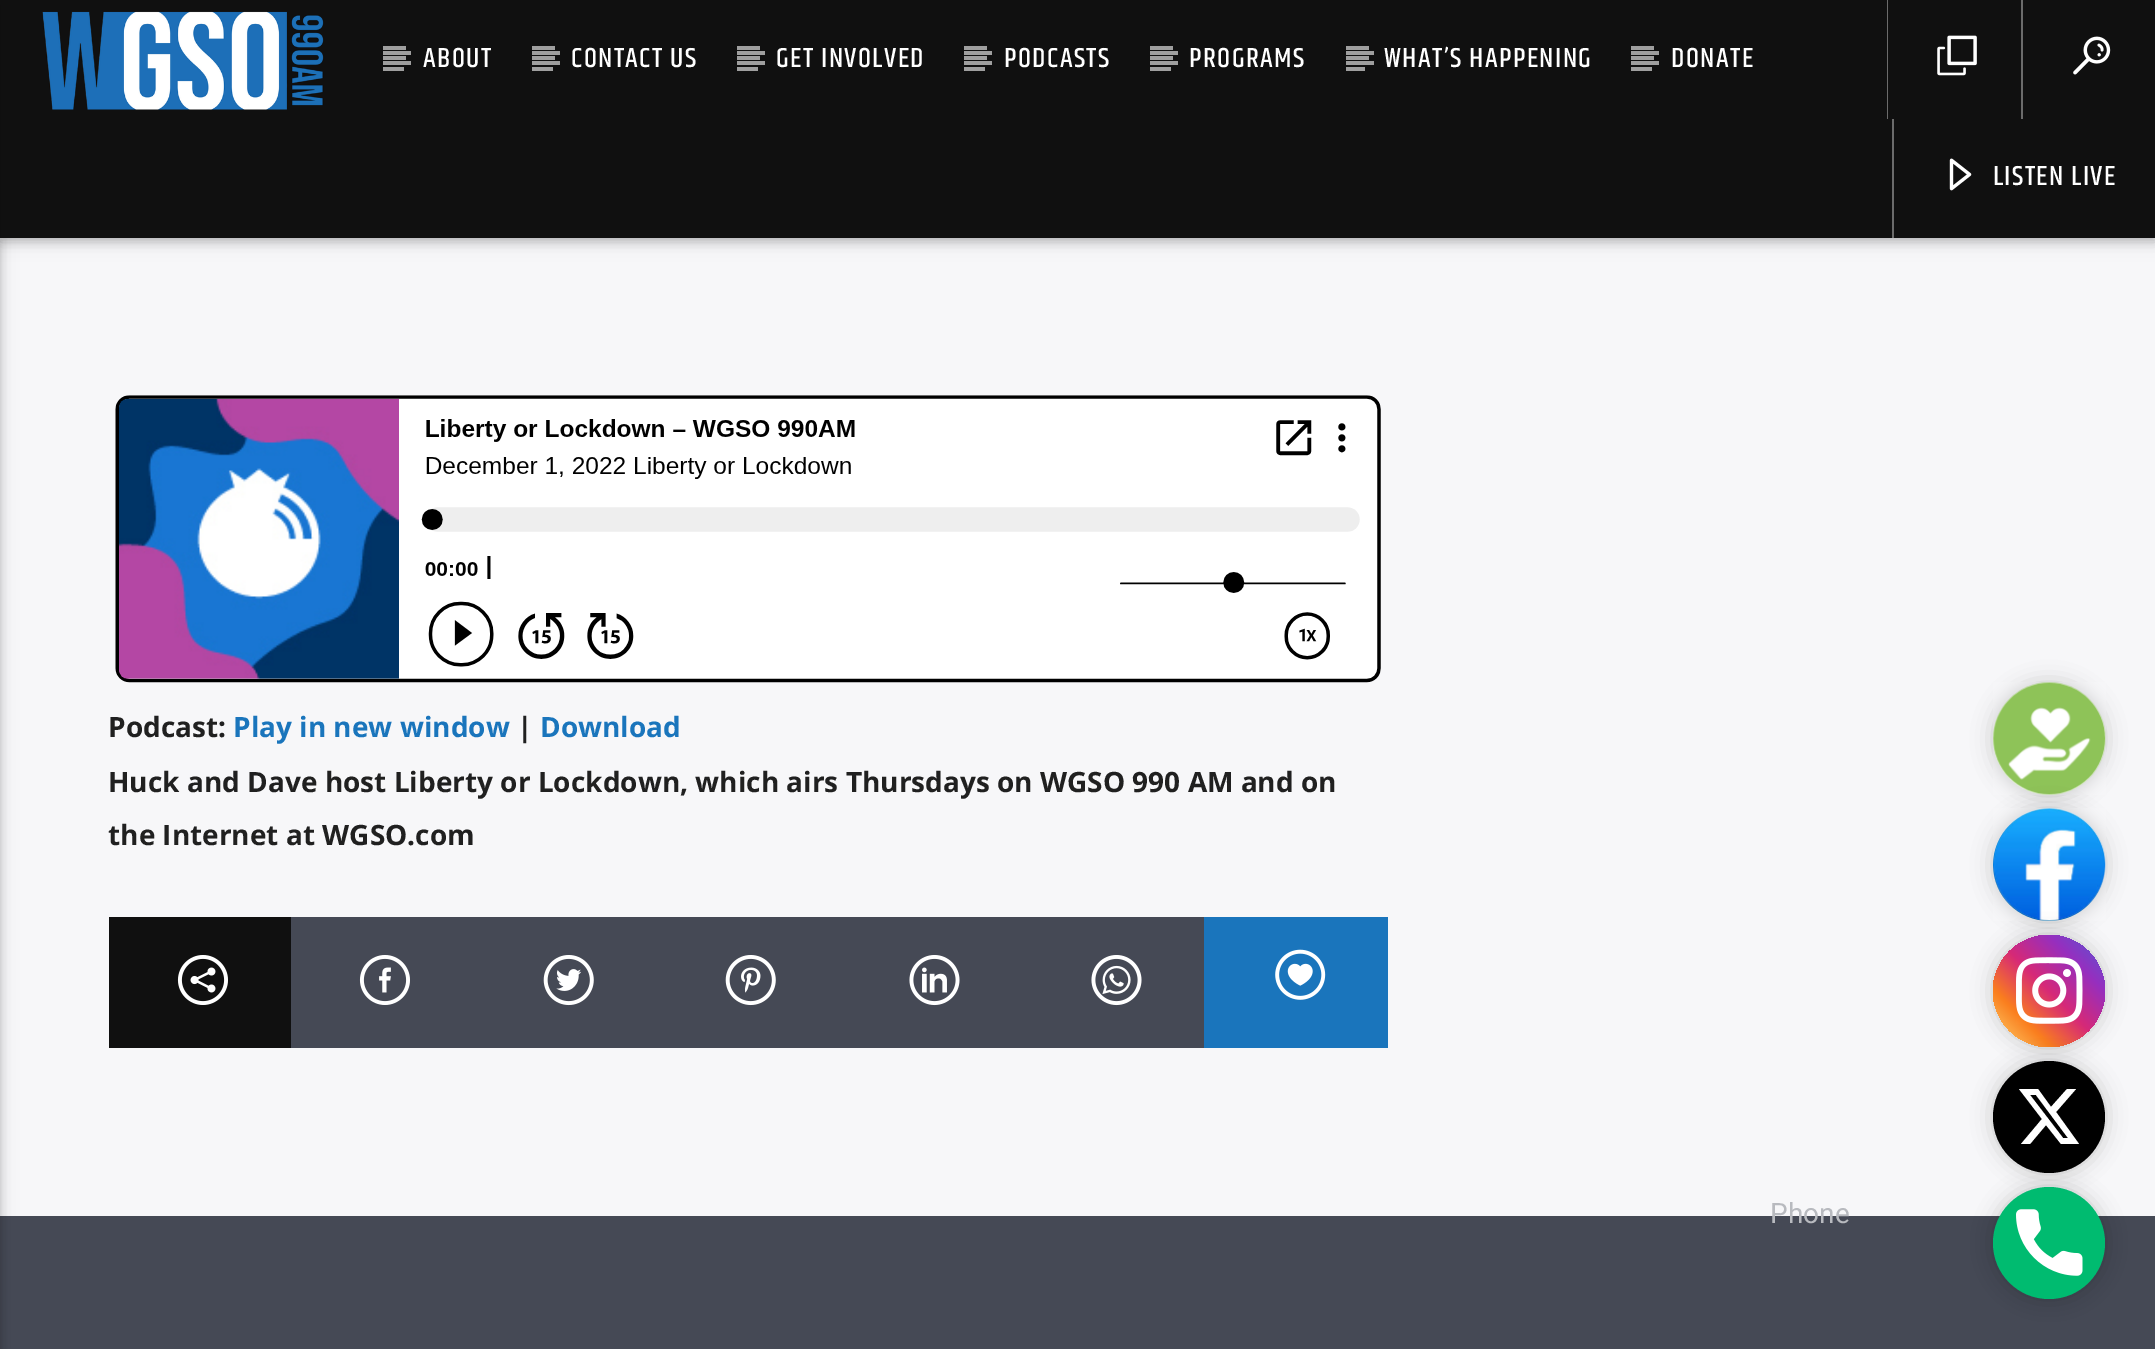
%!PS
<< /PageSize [2155 1349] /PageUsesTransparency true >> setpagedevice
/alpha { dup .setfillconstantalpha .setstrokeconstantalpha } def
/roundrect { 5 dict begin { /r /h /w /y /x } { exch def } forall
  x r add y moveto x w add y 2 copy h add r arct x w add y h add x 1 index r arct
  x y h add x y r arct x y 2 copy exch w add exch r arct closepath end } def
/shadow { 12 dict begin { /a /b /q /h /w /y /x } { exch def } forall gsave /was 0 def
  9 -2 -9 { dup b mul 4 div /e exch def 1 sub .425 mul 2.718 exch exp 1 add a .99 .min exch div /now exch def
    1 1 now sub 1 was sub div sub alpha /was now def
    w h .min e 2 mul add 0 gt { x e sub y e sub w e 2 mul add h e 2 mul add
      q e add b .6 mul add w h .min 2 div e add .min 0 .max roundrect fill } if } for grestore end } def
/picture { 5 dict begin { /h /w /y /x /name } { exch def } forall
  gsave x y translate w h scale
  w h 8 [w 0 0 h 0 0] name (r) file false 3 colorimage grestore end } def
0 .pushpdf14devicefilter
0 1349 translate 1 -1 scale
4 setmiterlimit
0.969 0.969 0.976 setrgbcolor
0 0 2155 1349 rectfill
0 setgray
0 4 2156 238 0 9 0.12 shadow
0 4 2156 238 0 4.5 0.16 shadow
0.063 setgray
0 0 2155 238 rectfill
0.271 0.286 0.333 setrgbcolor
0 1216 2155 133 rectfill
0 setgray
-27 4 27 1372 0 9 0.12 shadow
-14 4 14 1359 0 4.5 0.16 shadow
(img1.rgb) 42 11 282 99 picture
0.624 setgray
383 46 23 4 rectfill
383 56 23 4 rectfill
/Khand-Medium [28 0 0 -28 0 0] selectfont
1 setgray
423 67 moveto 1.4 0 (ABOUT) ashow
0.624 setgray
383 51 28 4 rectfill
383 61 28 4 rectfill
383 67 21 4 rectfill
532 46 23 4 rectfill
532 56 23 4 rectfill
1 setgray
571 67 moveto 1.4 0 (CONTACT US) ashow
0.624 setgray
532 51 28 4 rectfill
532 61 28 4 rectfill
532 67 21 4 rectfill
737 46 23 4 rectfill
737 56 23 4 rectfill
1 setgray
776 67 moveto 1.4 0 (GET INVOLVED) ashow
0.624 setgray
737 51 28 4 rectfill
737 61 28 4 rectfill
737 67 21 4 rectfill
964 46 23 4 rectfill
964 56 23 4 rectfill
1 setgray
1004 67 moveto 1.4 0 (PODCASTS) ashow
0.624 setgray
964 51 28 4 rectfill
964 61 28 4 rectfill
964 67 21 4 rectfill
1150 46 23 4 rectfill
1150 56 23 4 rectfill
1 setgray
1189 67 moveto 1.4 0 (PROGRAMS) ashow
0.624 setgray
1150 51 28 4 rectfill
1150 61 28 4 rectfill
1150 67 21 4 rectfill
1346 46 23 4 rectfill
1346 56 23 4 rectfill
1 setgray
1384 67 moveto 1.4 0 (WHAT’S HAPPENING) ashow
0.624 setgray
1346 51 28 4 rectfill
1346 61 28 4 rectfill
1346 67 19 4 rectfill
1631 46 23 4 rectfill
1631 56 23 4 rectfill
1 setgray
1671 67 moveto 1.4 0 (DONATE) ashow
0.624 setgray
1631 51 28 4 rectfill
1631 61 28 4 rectfill
1631 67 21 4 rectfill
0.42 setgray
1887 0 1 119 rectfill
(img2.rgb) 1937 35 40 41 picture
2021 0 2 119 rectfill
(img3.rgb) 2073 36 38 39 picture
1892 119 2 119 rectfill
(img4.rgb) 1949 158 23 33 picture
1 setgray
1993 185 moveto 1.4 0 (LISTEN LIVE) ashow
(img5.rgb) 115 395 1266 288 picture
/OpenSans-Bold [28 0 0 -28 0 0] selectfont
0.125 setgray
108 737 moveto (Podcast:) show
0.102 0.459 0.737 setrgbcolor
233 737 moveto (Play in new window) show
0.125 setgray
517 737 moveto (|) show
0.102 0.459 0.737 setrgbcolor
540 737 moveto (Download) show
0.125 setgray
108 792 moveto (Huck and Dave host Liberty or Lockdown, which airs Thursdays on WGSO 990 AM and on) show
108 845 moveto (the Internet at WGSO.com) show
0.271 0.286 0.333 setrgbcolor
291 917 913 131 rectfill
0.063 setgray
109 917 182 131 rectfill
(img6.rgb) 177 955 51 50 picture
(img7.rgb) 359 955 51 50 picture
(img8.rgb) 543 955 51 51 picture
(img9.rgb) 725 955 51 51 picture
(img10.rgb) 909 955 51 51 picture
(img11.rgb) 1091 955 51 51 picture
0.102 0.459 0.737 setrgbcolor
1204 917 184 131 rectfill
(img12.rgb) 1275 949 51 51 picture
0 setgray
1993 683 112 112 56 10.5 0.2 shadow
1 setgray
newpath 2049 739 56 0 360 arc closepath fill
(img13.rgb) 1993 682 113 113 picture
0 setgray
1993 809 112 112 56 10.5 0.2 shadow
0 0.408 0.667 setrgbcolor
newpath 2049 865 56 0 360 arc closepath fill
(img14.rgb) 1993 808 113 113 picture
0 setgray
1993 935 112 112 56 10.5 0.2 shadow
gsave newpath 2049 991 56 0 360 arc closepath clip newpath
<< /ShadingType 2 /ColorSpace /DeviceRGB /Coords [1993 1047 2105 935] /Extend [true true] /Function << /FunctionType 3 /Domain [0 1] /Functions [<< /FunctionType 2 /Domain [0 1] /C0 [0.996 0.851 0.459] /C1 [0.98 0.494 0.118] /N 1 >> << /FunctionType 2 /Domain [0 1] /C0 [0.98 0.494 0.118] /C1 [0.839 0.161 0.467] /N 1 >> << /FunctionType 2 /Domain [0 1] /C0 [0.839 0.161 0.467] /C1 [0.588 0.184 0.749] /N 1 >> << /FunctionType 2 /Domain [0 1] /C0 [0.588 0.184 0.749] /C1 [0.31 0.353 0.835] /N 1 >>] /Bounds [0.26 0.5 0.75] /Encode [0 1 0 1 0 1 0 1] >> >> shfill grestore
(img15.rgb) 2016 957 67 67 picture
1993 1061 112 112 56 10.5 0.2 shadow
newpath 2049 1117 56 0 360 arc closepath fill
1 setgray
newpath 2067 1089 moveto 2076 1089 lineto 2056 1112 lineto 2079 1144 lineto 2061 1144 lineto 2046 1125 lineto 2030 1144 lineto 2021 1144 lineto 2042 1119 lineto 2019 1089 lineto 2038 1089 lineto 2051 1107 lineto closepath 2063 1138 moveto 2068 1138 lineto 2036 1095 lineto 2030 1095 lineto closepath fill
0 setgray
1993 1187 112 112 56 10.5 0.2 shadow
0 0.733 0.439 setrgbcolor
newpath 2049 1243 56 0 360 arc closepath fill
/Roboto-Regular [28 0 0 -28 0 0] selectfont
0.722 0.729 0.749 setrgbcolor
1770 1223 moveto (Phone) show
(img16.rgb) 2016 1209 67 67 picture
.poppdf14devicefilter showpage
